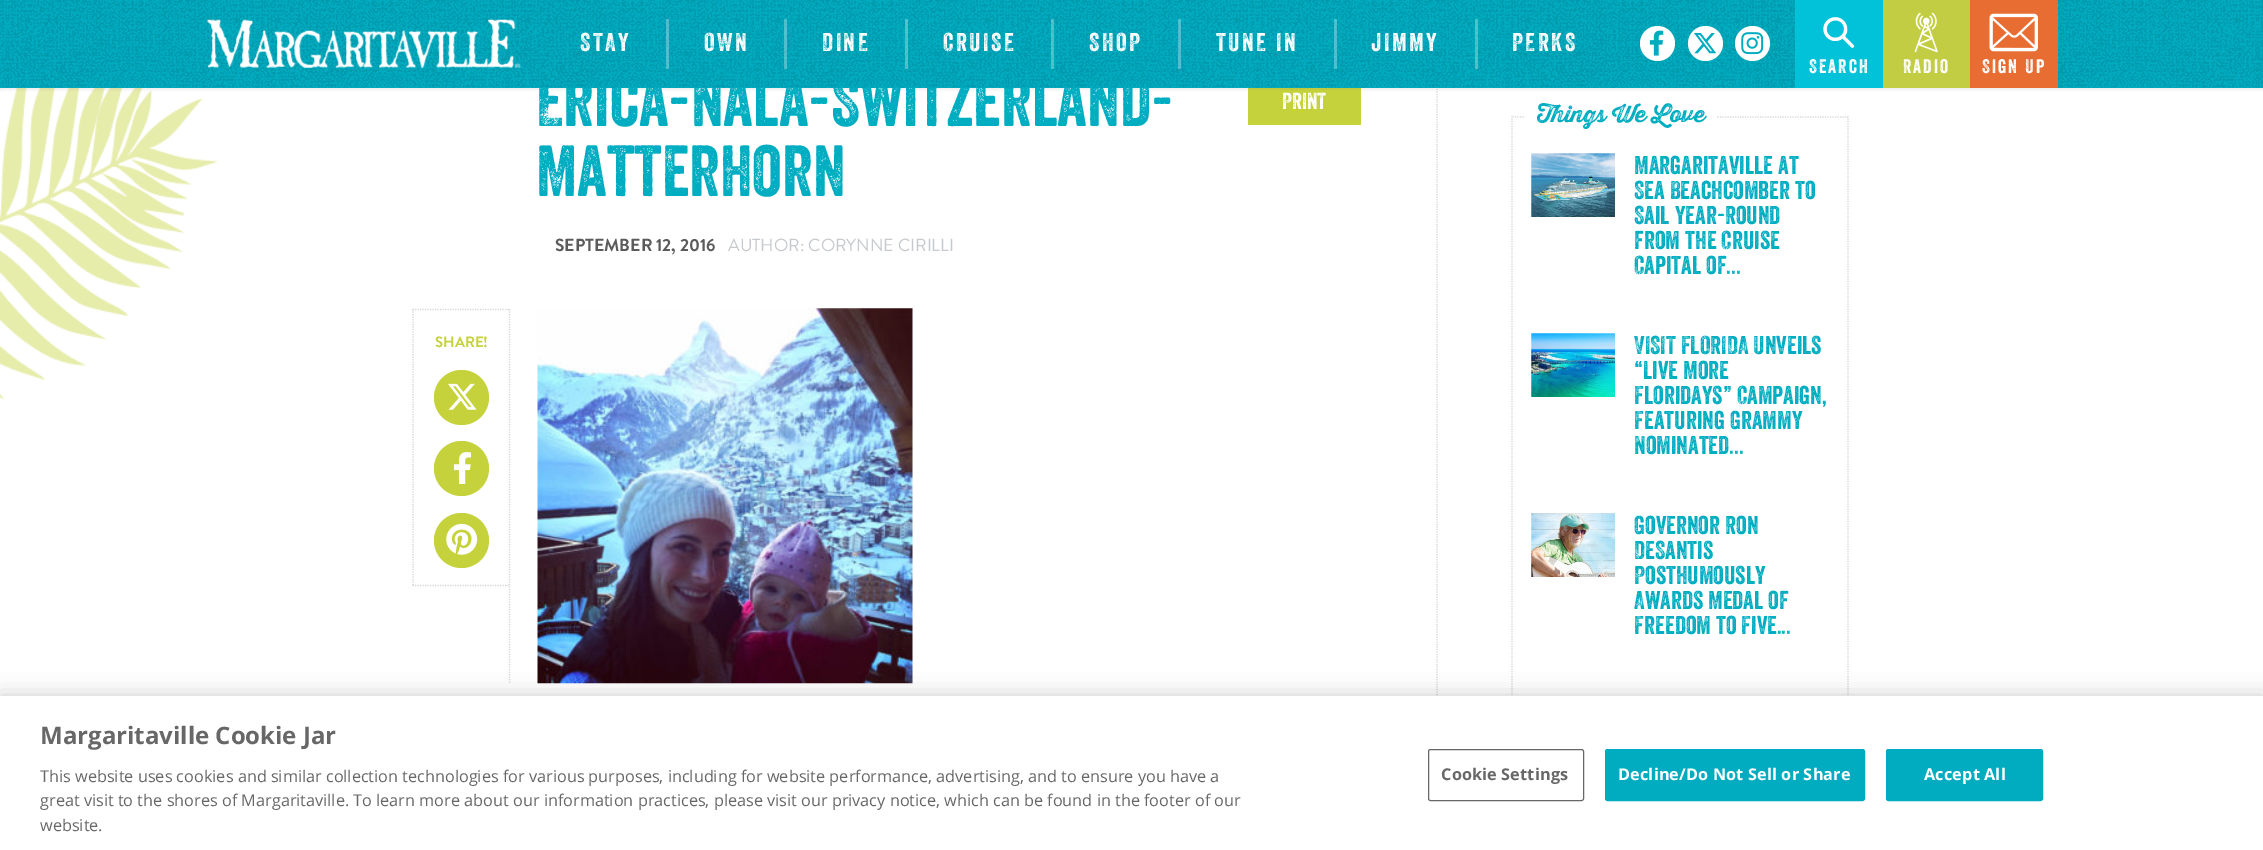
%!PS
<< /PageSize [2263 850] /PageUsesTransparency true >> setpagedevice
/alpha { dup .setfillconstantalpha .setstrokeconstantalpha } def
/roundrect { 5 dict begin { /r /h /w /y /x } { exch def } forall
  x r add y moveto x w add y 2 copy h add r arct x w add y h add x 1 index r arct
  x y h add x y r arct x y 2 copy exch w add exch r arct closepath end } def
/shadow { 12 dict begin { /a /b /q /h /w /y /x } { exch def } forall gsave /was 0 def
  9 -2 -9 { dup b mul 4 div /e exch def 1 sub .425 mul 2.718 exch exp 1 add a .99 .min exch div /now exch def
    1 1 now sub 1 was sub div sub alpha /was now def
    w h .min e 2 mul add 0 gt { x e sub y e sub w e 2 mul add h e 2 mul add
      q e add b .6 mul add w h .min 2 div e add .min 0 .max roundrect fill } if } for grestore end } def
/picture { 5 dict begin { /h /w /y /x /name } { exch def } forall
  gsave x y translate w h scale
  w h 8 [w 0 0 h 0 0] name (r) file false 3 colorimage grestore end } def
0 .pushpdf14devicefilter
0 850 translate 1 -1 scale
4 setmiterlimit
1 setgray
0 0 2263 850 rectfill
(img9.rgb) 0 88 218 312 picture
0.773 0.824 0.231 setrgbcolor
1248 88 113 37 rectfill
0.831 0.839 0.851 setrgbcolor
1.2 setlinewidth
[1.25 1.25] 0 setdash
newpath 1437 79 moveto 1437 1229 lineto stroke
0.404 setgray
0 3 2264 87 0 1 0.1 shadow
/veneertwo-Regular [70 0 0 -70 0 0] selectfont
0.004 0.678 0.757 setrgbcolor
536 126 moveto (Erica-Nala-Switzerland-) show
0.004 0.671 0.753 setrgbcolor
0 0 2263 88 rectfill
(img1.rgb) 0 0 2263 88 picture
(img2.rgb) 207 19 314 49 picture
/veneertwo-Regular [25 0 0 -25 0 0] selectfont
1 setgray
580 51 moveto 2.5 0 (STAY) ashow
0.3 alpha
666 19 3 50 rectfill
1 alpha
704 51 moveto 2.5 0 (OWN) ashow
0.3 alpha
784 19 3 50 rectfill
1 alpha
822 51 moveto 2.5 0 (DINE) ashow
0.3 alpha
905 19 3 50 rectfill
1 alpha
943 51 moveto 2.5 0 (CRUISE) ashow
0.3 alpha
1051 19 3 50 rectfill
1 alpha
1089 51 moveto 2.5 0 (SHOP) ashow
0.3 alpha
1178 19 3 50 rectfill
1 alpha
1216 51 moveto 2.5 0 (TUNE IN) ashow
0.3 alpha
1334 19 3 50 rectfill
1 alpha
1371 51 moveto 2.5 0 (JIMMY) ashow
0.3 alpha
1475 19 3 50 rectfill
1 alpha
1512 51 moveto 2.5 0 (PERKS) ashow
newpath 1657.5 43.5 17.5 0 360 arc closepath fill
(img3.rgb) 1649 30 15 26 picture
newpath 1705.5 43.5 17.5 0 360 arc closepath fill
(img4.rgb) 1694 33 23 21 picture
newpath 1752.5 43.5 17.5 0 360 arc closepath fill
(img5.rgb) 1741 32 23 23 picture
0.004 0.761 0.851 setrgbcolor
1795 0 88 88 rectfill
(img6.rgb) 1823 17 32 31 picture
/veneertwo-Regular [19 0 0 -19 0 0] selectfont
1 setgray
1809 73 moveto 2 0 (Search) ashow
0.761 0.804 0.263 setrgbcolor
1883 0 87 88 rectfill
(img7.rgb) 1914 12 24 41 picture
1 setgray
1903 73 moveto 2 0 (Radio) ashow
0.91 0.427 0.196 setrgbcolor
1970 0 88 88 rectfill
(img8.rgb) 1989 13 49 39 picture
1 setgray
1982 73 moveto 2 0 (Sign Up) ashow
/veneertwo-Regular [70 0 0 -70 0 0] selectfont
0.004 0.678 0.757 setrgbcolor
536 196 moveto (Matterhorn) show
/BrandonGrotesque-Bold [17.5 0 0 -17.5 0 0] selectfont
0.357 setgray
555 251 moveto (SEPTEMBER 12, 2016) show
/BrandonGrotesque-Regular [17.5 0 0 -17.5 0 0] selectfont
0.776 0.788 0.804 setrgbcolor
728 251 moveto (AUTHOR: CORYNNE CIRILLI) show
/veneertwo-Regular [22.5 0 0 -22.5 0 0] selectfont
1 setgray
1282 109 moveto (PRINT) show
0.831 0.839 0.851 setrgbcolor
newpath 509.5 309 moveto 509.5 684 lineto stroke
newpath 412.5 309.5 moveto 510 309.5 lineto stroke
newpath 412.5 585.5 moveto 510 585.5 lineto stroke
newpath 413 309 moveto 413 586 lineto stroke
/BrandonGrotesque-Bold [15 0 0 -15 0 0] selectfont
0.773 0.824 0.231 setrgbcolor
435 347 moveto (SHARE!) show
newpath 461.5 397.5 27.5 0 360 arc closepath fill
(img10.rgb) 448 383 29 27 picture
newpath 461.5 468.5 27.5 0 360 arc closepath fill
(img11.rgb) 453 452 18 32 picture
newpath 461.5 540.5 27.5 0 360 arc closepath fill
(img12.rgb) 446 523 32 32 picture
(img13.rgb) 537 308 376 376 picture
0.831 0.839 0.851 setrgbcolor
newpath 1848 116 moveto 1848 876 lineto stroke
newpath 1512 116 moveto 1512 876 lineto stroke
gsave
1513 99 335 35 rectclip
newpath -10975 117 moveto 1525 117 lineto stroke
grestore
/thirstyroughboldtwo-Regular [22.5 0 0 -22.5 0 0] selectfont
0.004 0.678 0.757 setrgbcolor
1537 122 moveto (Things We Love) show
gsave
1513 99 335 35 rectclip
0.831 0.839 0.851 setrgbcolor
newpath 1717.5 117 moveto 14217.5 117 lineto stroke
grestore
(img14.rgb) 1531 153 84 64 picture
/veneertwo-Regular [25 0 0 -25 0 0] selectfont
1634 174 moveto (Margaritaville at) show
1634 199 moveto (Sea Beachcomber to) show
1634 224 moveto (Sail Year-Round) show
1634 249 moveto (from the Cruise) show
1634 274 moveto (Capital of...) show
(img15.rgb) 1531 333 84 64 picture
1634 354 moveto (VISIT FLORIDA Unveils) show
1634 379 moveto (“Live More) show
1634 404 moveto (Floridays” Campaign,) show
1634 429 moveto (Featuring Grammy) show
1634 454 moveto (Nominated...) show
(img16.rgb) 1531 513 84 64 picture
1634 534 moveto (Governor Ron) show
1634 559 moveto (DeSantis) show
1634 584 moveto (Posthumously) show
1634 609 moveto (Awards Medal of) show
1634 634 moveto (Freedom to Five...) show
0 setgray
0 696 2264 154 0 11 0.2 shadow
1 setgray
0 696 2263 154 rectfill
/OpenSans-Bold [24 0 0 -24 0 0] selectfont
0.404 setgray
40 744 moveto (Margaritaville Cookie Jar) show
/OpenSans-Regular [16.25 0 0 -16.25 0 0] selectfont
40 782 moveto (This website uses cookies and similar collection technologies for various purposes, including for website performance, advertising, and to ensure you have a) show
40 806 moveto (great visit to the shores of Margaritaville. To learn more about our information practices, please visit our privacy notice, which can be found in the footer of our) show
40 831 moveto (website.) show
1 setlinewidth
[] 0 setdash
1428.5 749.5 155 51 2 roundrect stroke
/OpenSans-Bold [16.25 0 0 -16.25 0 0] selectfont
1441 780 moveto 0.15 0 (Cookie Settings) ashow
0.004 0.671 0.753 setrgbcolor
1605.5 749.5 259 51 2 roundrect gsave fill grestore
stroke
1 setgray
1618 780 moveto 0.15 0 (Decline/Do Not Sell or Share) ashow
0.004 0.671 0.753 setrgbcolor
1886.5 749.5 156 51 2 roundrect gsave fill grestore
stroke
1 setgray
1924 780 moveto 0.15 0 (Accept All) ashow
.poppdf14devicefilter showpage
